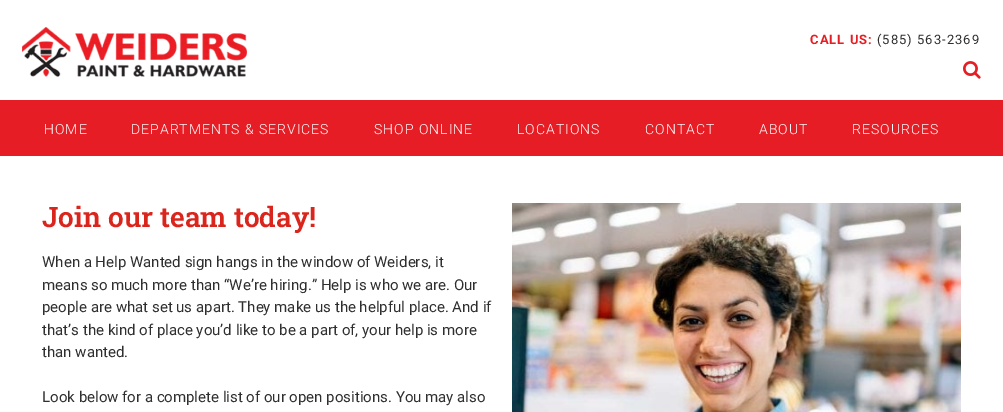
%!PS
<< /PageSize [1003 412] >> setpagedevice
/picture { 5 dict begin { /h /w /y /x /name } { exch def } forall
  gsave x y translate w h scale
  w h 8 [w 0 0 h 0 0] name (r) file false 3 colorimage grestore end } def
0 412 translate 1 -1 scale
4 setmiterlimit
1 setgray
0 0 1003 412 rectfill
(img1.rgb) 22 27 225 50 picture
/Roboto-Bold [13 0 0 -13 0 0] selectfont
0.902 0.114 0.141 setrgbcolor
810 44 moveto 1 0 (CALL US:) ashow
/Roboto-Regular [13 0 0 -13 0 0] selectfont
0.184 setgray
877 44 moveto 1 0 (\(585\) 563-2369) ashow
(img2.rgb) 963 61 18 18 picture
0.902 0.114 0.141 setrgbcolor
0 100 1003 56 rectfill
/Roboto-Light [14 0 0 -14 0 0] selectfont
1 setgray
44 134 moveto 1 0 (HOME) ashow
131 134 moveto 1 0 (DEPARTMENTS & SERVICES) ashow
374 134 moveto 1 0 (SHOP ONLINE) ashow
517 134 moveto 1 0 (LOCATIONS) ashow
645 134 moveto 1 0 (CONTACT) ashow
759 134 moveto 1 0 (ABOUT) ashow
852 134 moveto 1 0 (RESOURCES) ashow
/RobotoSlab-SemiBold [28 0 0 -28 0 0] selectfont
0.855 0.145 0.114 setrgbcolor
42 227 moveto (Join our team today!) show
/Roboto-Regular [15 0 0 -15 0 0] selectfont
0.184 setgray
42 267 moveto (When a Help Wanted sign hangs in the window of Weiders, it) show
42 290 moveto (means so much more than “We’re hiring.” Help is who we are. Our) show
42 312 moveto (people are what set us apart. They make us the helpful place. And if) show
42 335 moveto (that’s the kind of place you’d like to be a part of, your help is more) show
42 357 moveto (than wanted.) show
42 402 moveto (Look below for a complete list of our open positions. You may also) show
(img3.rgb) 512 203 449 209 picture
showpage
